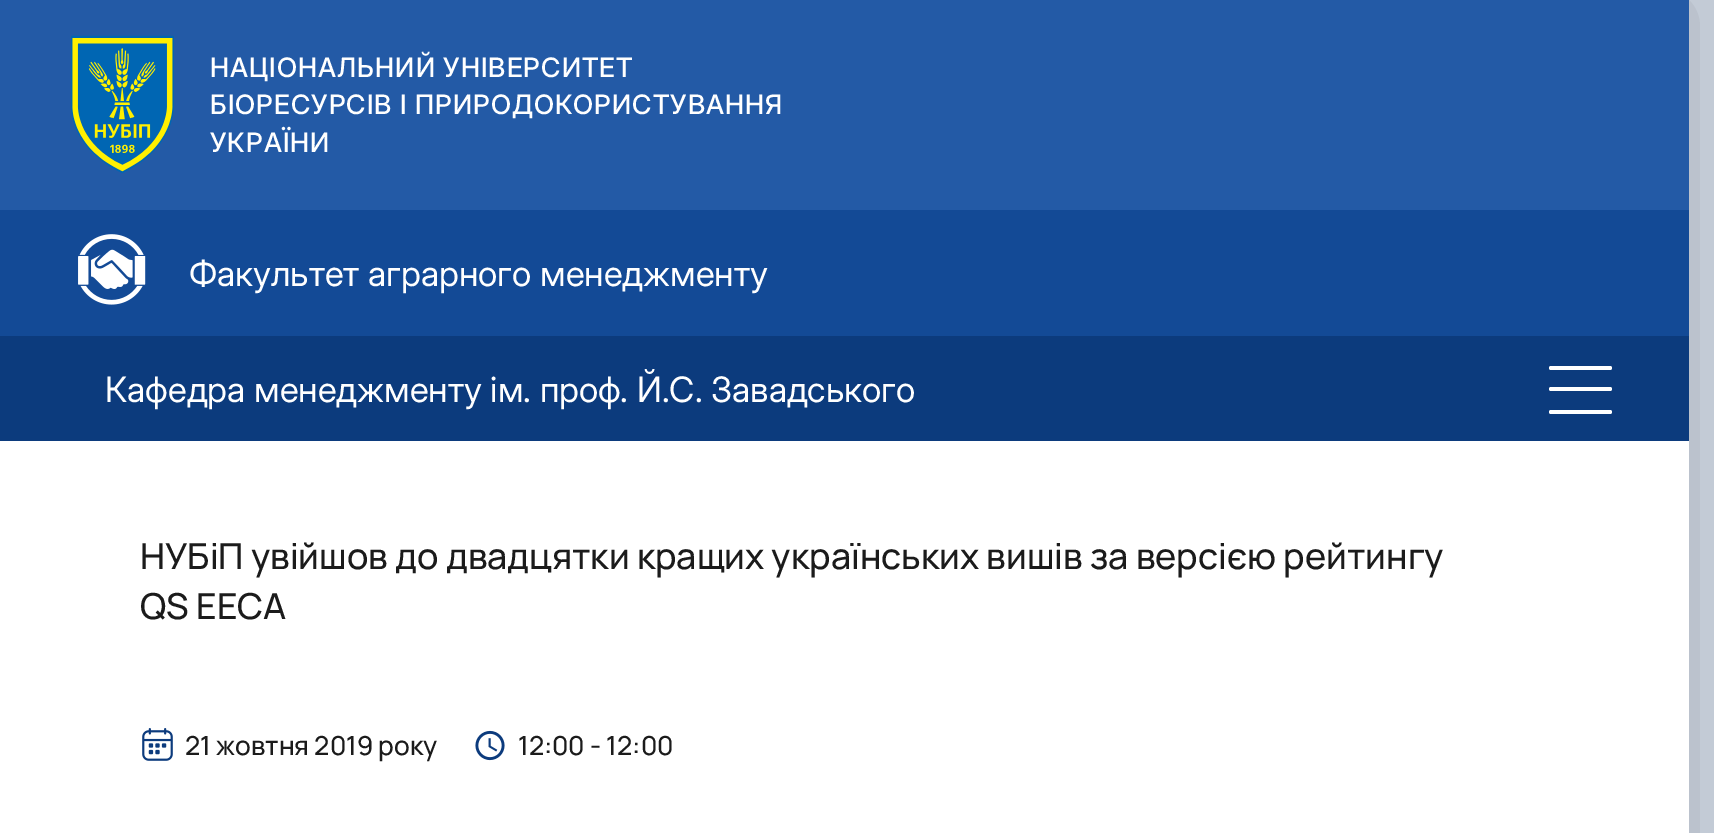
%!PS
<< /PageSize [1714 833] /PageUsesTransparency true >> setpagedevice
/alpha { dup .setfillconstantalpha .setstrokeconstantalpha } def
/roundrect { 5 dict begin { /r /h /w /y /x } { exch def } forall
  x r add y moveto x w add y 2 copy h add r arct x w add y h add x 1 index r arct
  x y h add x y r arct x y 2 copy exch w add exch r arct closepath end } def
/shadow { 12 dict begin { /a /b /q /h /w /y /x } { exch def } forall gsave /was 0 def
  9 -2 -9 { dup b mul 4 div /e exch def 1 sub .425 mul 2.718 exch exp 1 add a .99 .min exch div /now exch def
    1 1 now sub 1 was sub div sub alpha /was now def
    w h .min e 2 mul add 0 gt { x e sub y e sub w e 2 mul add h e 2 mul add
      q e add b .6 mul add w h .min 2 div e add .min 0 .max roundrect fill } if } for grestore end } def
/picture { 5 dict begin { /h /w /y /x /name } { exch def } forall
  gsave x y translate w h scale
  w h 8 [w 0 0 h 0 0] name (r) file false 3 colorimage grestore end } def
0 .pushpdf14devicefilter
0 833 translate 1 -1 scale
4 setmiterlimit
0.816 0.851 0.898 setrgbcolor
0 0 1714 833 rectfill
0 setgray
0 0 1689 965 0 44 0.2 shadow
0.137 0.353 0.651 setrgbcolor
0 0 1689 210 rectfill
(img1.rgb) 71 35 103 139 picture
/InterDisplay-Medium [26.75 0 0 -26.75 0 0] selectfont
1 setgray
210 77 moveto 1.1 0 (НАЦІОНАЛЬНИЙ УНІВЕРСИТЕТ) ashow
210 114 moveto 1.1 0 (БІОРЕСУРСІВ І ПРИРОДОКОРИСТУВАННЯ) ashow
210 152 moveto 1.1 0 (УКРАЇНИ) ashow
0 441 1689 392 rectfill
0.075 0.29 0.588 setrgbcolor
0 210 1689 126 rectfill
(img2.rgb) 78 234 68 71 picture
/InterDisplay-Regular [35 0 0 -35 0 0] selectfont
1 setgray
189 286 moveto (Факультет аграрного менеджменту) show
0.047 0.231 0.49 setrgbcolor
0 336 1689 105 rectfill
1 setgray
105 402 moveto (Кафедра менеджменту ім. проф. Й.С. Завадського) show
1549 366 63 4 2 roundrect fill
1549 387 63 4 2 roundrect fill
1549 410 63 4 2 roundrect fill
/Manrope-Medium [35.85 0 0 -35.85 0 0] selectfont
0.106 setgray
140 569 moveto (НУБіП увійшов до двадцятки кращих українських вишів за версією рейтингу) show
140 619 moveto (QS EECA) show
(img3.rgb) 142 728 31 33 picture
/Manrope-Medium [26.25 0 0 -26.25 0 0] selectfont
185 755 moveto (21 жовтня 2019 року) show
(img4.rgb) 475 730 30 31 picture
518 755 moveto (12:00 - 12:00) show
.poppdf14devicefilter showpage
